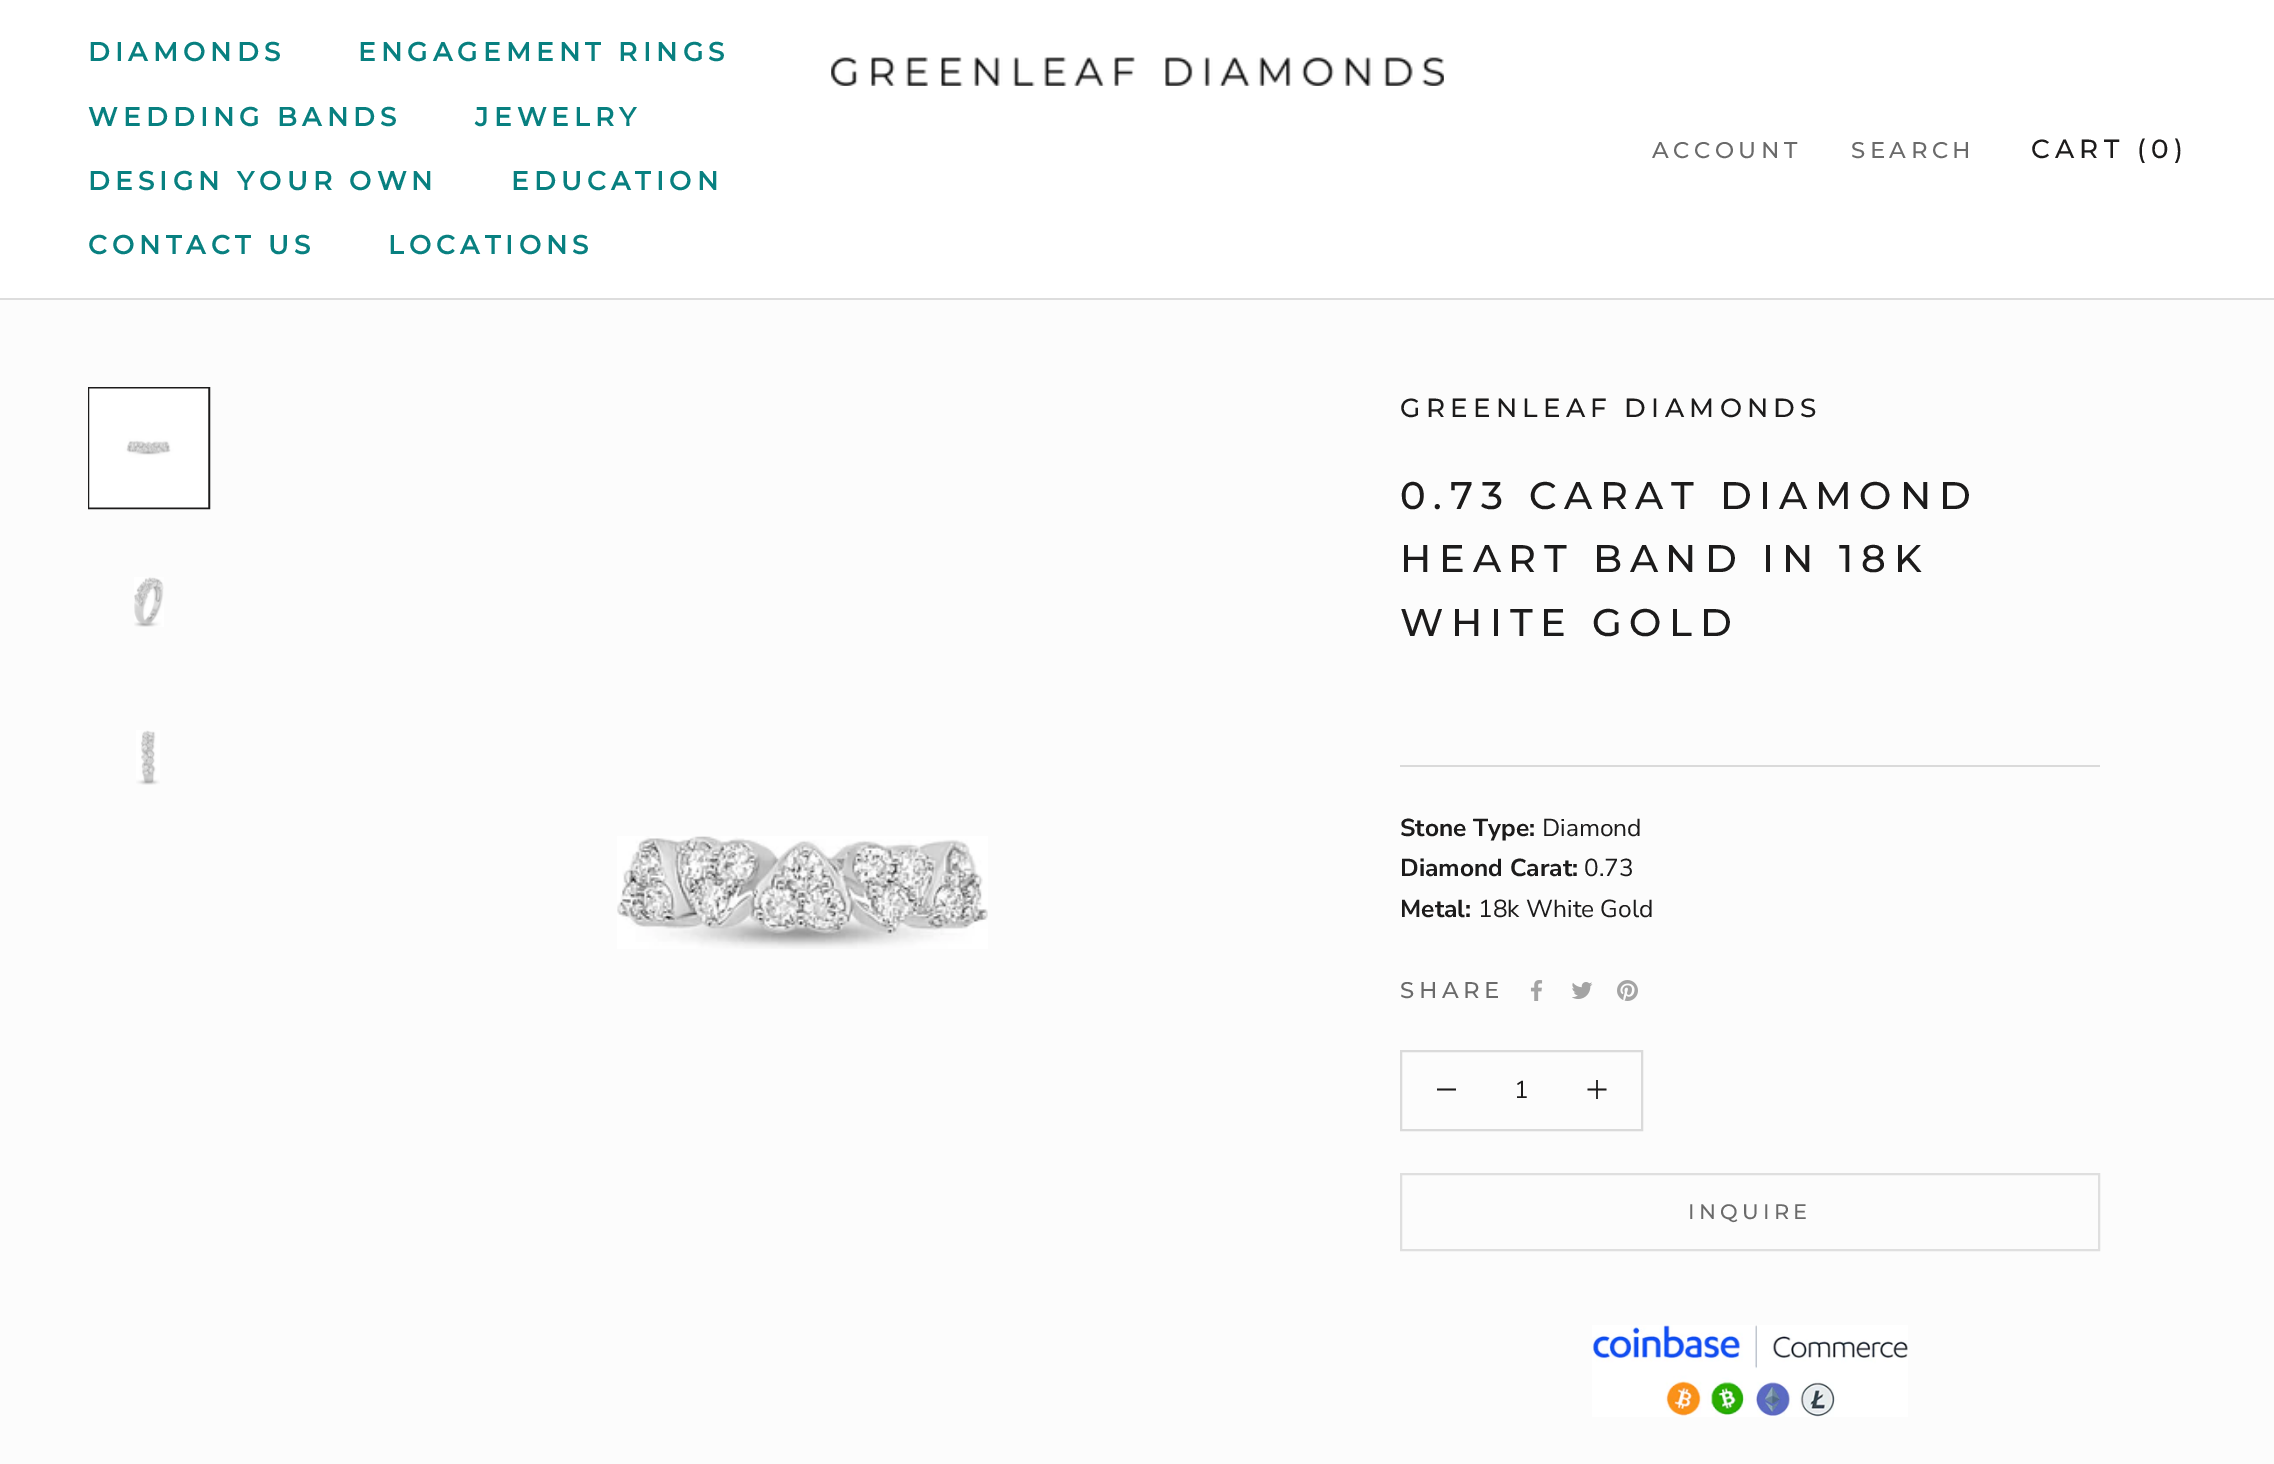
%!PS
<< /PageSize [2274 1464] >> setpagedevice
/picture { 5 dict begin { /h /w /y /x /name } { exch def } forall
  gsave x y translate w h scale
  w h 8 [w 0 0 h 0 0] name (r) file false 3 colorimage grestore end } def
0 1464 translate 1 -1 scale
4 setmiterlimit
0.988 setgray
0 0 2274 1464 rectfill
1 setgray
0 0 2274 298 rectfill
0.867 setgray
0 298 2274 2 rectfill
/Montserrat-Bold [26.25 0 0 -26.25 0 0] selectfont
0.031 0.502 0.502 setrgbcolor
88 61 moveto 5.25 0 (DIAMONDS) ashow
358 61 moveto 5.25 0 (ENGAGEMENT RINGS) ashow
88 126 moveto 5.25 0 (WEDDING BANDS) ashow
475 126 moveto 5.25 0 (JEWELRY) ashow
88 190 moveto 5.25 0 (DESIGN YOUR OWN) ashow
511 190 moveto 5.25 0 (EDUCATION) ashow
88 254 moveto 5.25 0 (CONTACT US) ashow
388 254 moveto 5.25 0 (LOCATIONS) ashow
(img1.rgb) 831 57 613 29 picture
/Montserrat-Medium [22.75 0 0 -22.75 0 0] selectfont
0.416 setgray
1652 158 moveto 4.5 0 (ACCOUNT) ashow
1851 158 moveto 4.5 0 (SEARCH) ashow
/Montserrat-Medium [26.25 0 0 -26.25 0 0] selectfont
0.11 0.106 0.106 setrgbcolor
2031 158 moveto 5.25 0 (CART \(0\)) ashow
2 setlinewidth
89 388 120 120 rectstroke
(img2.rgb) 89 388 120 120 picture
(img3.rgb) 134 577 30 50 picture
(img4.rgb) 136 730 24 55 picture
(img5.rgb) 617 836 371 113 picture
0.855 setgray
1400 765 700 2 rectfill
0.11 0.106 0.106 setrgbcolor
1400 417 moveto 5.25 0 (GREENLEAF DIAMONDS) ashow
/Montserrat-Medium [38.5 0 0 -38.5 0 0] selectfont
1400 509 moveto 7.75 0 (0.73 CARAT DIAMOND) ashow
1400 572 moveto 7.75 0 (HEART BAND IN 18K) ashow
1400 636 moveto 7.75 0 (WHITE GOLD) ashow
/NunitoSans-Bold [24.5 0 0 -24.5 0 0] selectfont
1400 836 moveto (Stone Type:) show
/NunitoSans-Regular [24.5 0 0 -24.5 0 0] selectfont
1542 836 moveto (Diamond) show
/NunitoSans-Bold [24.5 0 0 -24.5 0 0] selectfont
1400 876 moveto (Diamond Carat:) show
/NunitoSans-Regular [24.5 0 0 -24.5 0 0] selectfont
1584 876 moveto (0.73) show
/NunitoSans-Bold [24.5 0 0 -24.5 0 0] selectfont
1400 917 moveto (Metal:) show
/NunitoSans-Regular [24.5 0 0 -24.5 0 0] selectfont
1478 917 moveto (18k White Gold) show
/Montserrat-Medium [22.75 0 0 -22.75 0 0] selectfont
0.416 setgray
1400 998 moveto 4.5 0 (SHARE) ashow
(img6.rgb) 1530 980 13 21 picture
(img7.rgb) 1572 982 21 17 picture
(img8.rgb) 1617 980 21 21 picture
0.855 setgray
1401 1051 241 79 rectstroke
0.11 0.106 0.106 setrgbcolor
1.8 setlinewidth
2 setlinecap
newpath 1438 1089.5 moveto 1455 1089.5 lineto stroke
/NunitoSans-Regular [24.5 0 0 -24.5 0 0] selectfont
1514 1098 moveto (1) show
0.196 setgray
1596 1080 2 19 rectfill
0.11 0.106 0.106 setrgbcolor
newpath 1588.5 1089.5 moveto 1605.5 1089.5 lineto stroke
0.875 setgray
2 setlinewidth
0 setlinecap
1401 1174 698 76 rectstroke
/Montserrat-Medium [21 0 0 -21 0 0] selectfont
0.416 setgray
1688 1219 moveto 4.25 0 (INQUIRE) ashow
(img9.rgb) 1592 1325 316 92 picture
showpage
